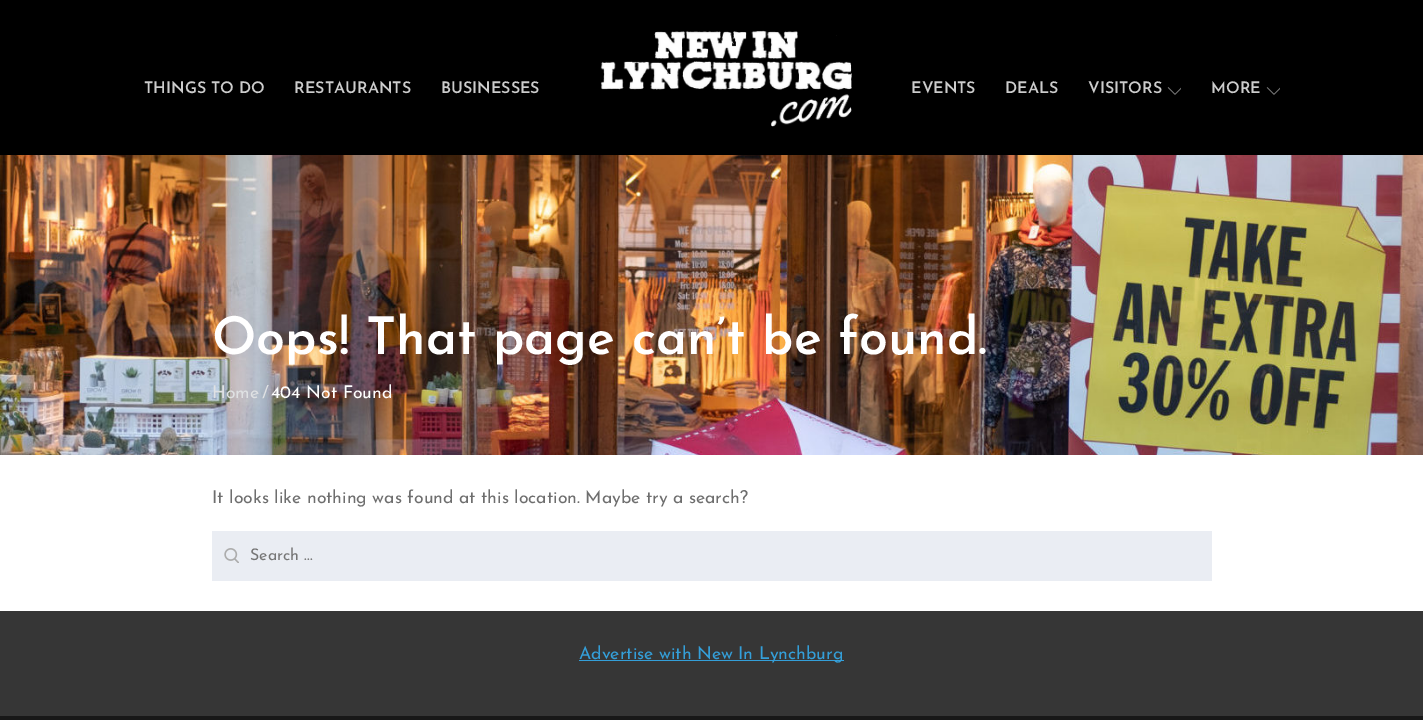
%!PS
<< /PageSize [1423 720] >> setpagedevice
/picture { 5 dict begin { /h /w /y /x /name } { exch def } forall
  gsave x y translate w h scale
  w h 8 [w 0 0 h 0 0] name (r) file false 3 colorimage grestore end } def
0 720 translate 1 -1 scale
4 setmiterlimit
1 setgray
0 0 1423 720 rectfill
0 setgray
0 0 1423 155 rectfill
/JosefinSans-SemiBold [16 0 0 -16 0 0] selectfont
0.8 setgray
144 93 moveto (THINGS TO DO) show
294 93 moveto (RESTAURANTS) show
441 93 moveto (BUSINESSES) show
(img1.rgb) 600 30 252 97 picture
911 93 moveto (EVENTS) show
1005 93 moveto (DEALS) show
1088 93 moveto (VISITORS) show
(img2.rgb) 1167 87 14 8 picture
1211 93 moveto (MORE) show
(img2.rgb) 1266 87 14 8 picture
(img3.rgb) 0 155 1423 300 picture
/JosefinSans-SemiBold [52 0 0 -52 0 0] selectfont
1 setgray
212 354 moveto (Oops! That page can’t be found.) show
/JosefinSans-Regular [17.6 0 0 -17.6 0 0] selectfont
0.875 0.882 0.89 setrgbcolor
212 398 moveto (Home) show
262 398 moveto (/) show
1 setgray
271 398 moveto (404 Not Found) show
0.431 setgray
212 503 moveto (It looks like nothing was found at this location. Maybe try a search?) show
0.918 0.929 0.953 setrgbcolor
212 531 1000 50 rectfill
(img4.rgb) 224 548 15 15 picture
/JosefinSans-Regular [16 0 0 -16 0 0] selectfont
0.459 setgray
250 560 moveto (Search ...) show
0.212 setgray
0 611 1423 105 rectfill
0.204 0.624 0.851 setrgbcolor
579 660 265 1 rectfill
/JosefinSans-Regular [17.6 0 0 -17.6 0 0] selectfont
579 659 moveto (Advertise with New In Lynchburg) show
0.094 setgray
0 716 1423 4 rectfill
showpage
